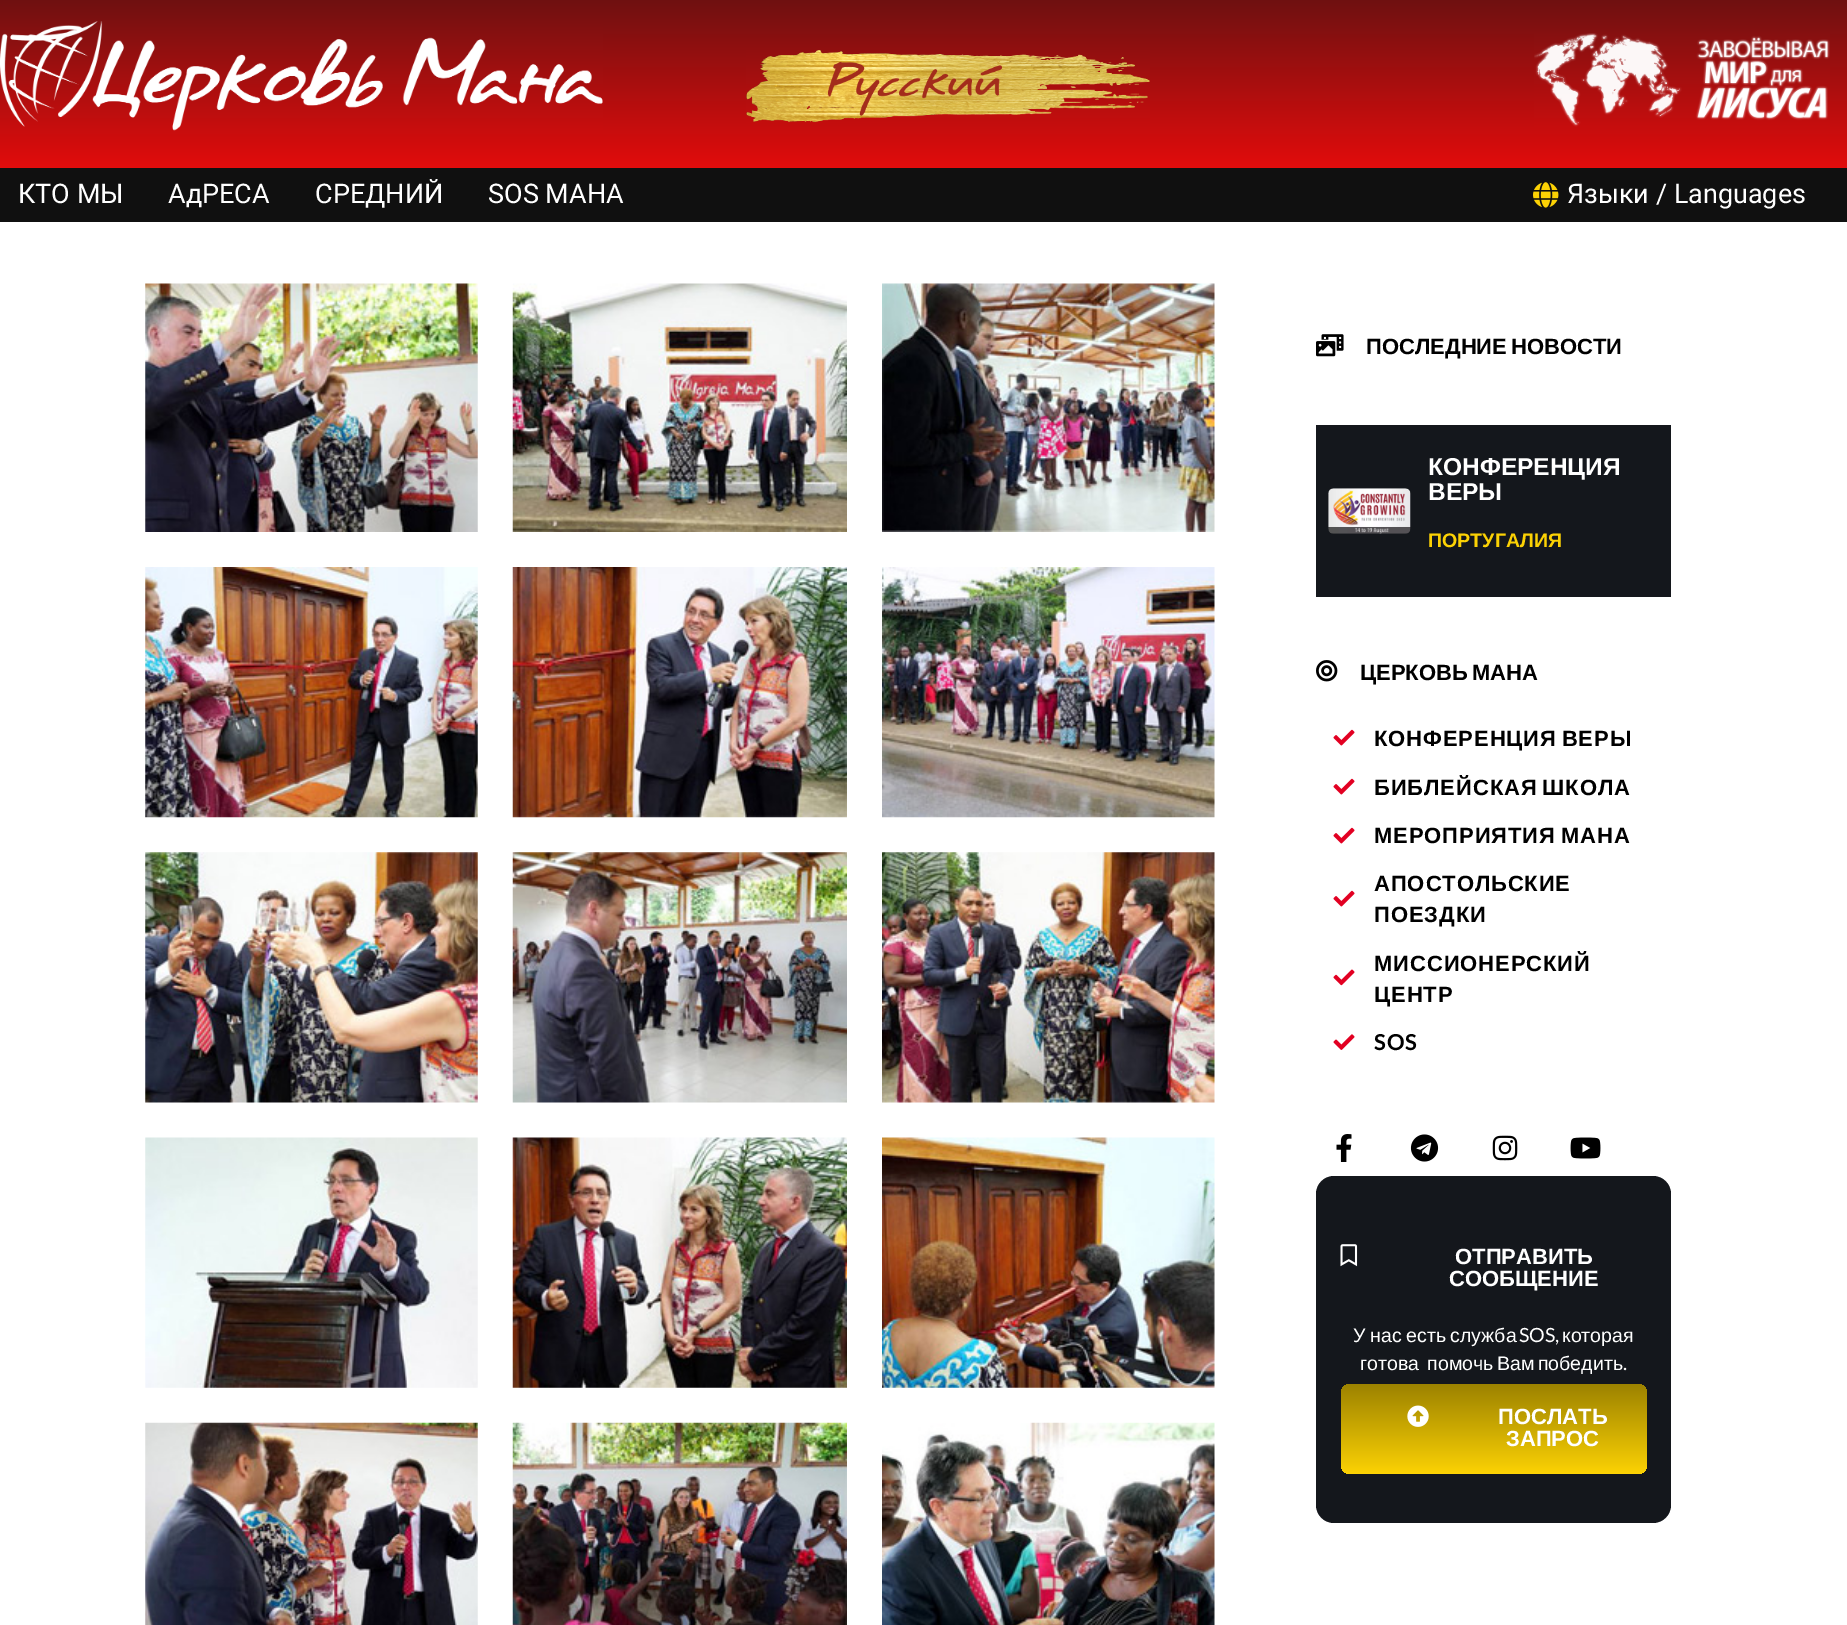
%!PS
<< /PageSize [1847 1625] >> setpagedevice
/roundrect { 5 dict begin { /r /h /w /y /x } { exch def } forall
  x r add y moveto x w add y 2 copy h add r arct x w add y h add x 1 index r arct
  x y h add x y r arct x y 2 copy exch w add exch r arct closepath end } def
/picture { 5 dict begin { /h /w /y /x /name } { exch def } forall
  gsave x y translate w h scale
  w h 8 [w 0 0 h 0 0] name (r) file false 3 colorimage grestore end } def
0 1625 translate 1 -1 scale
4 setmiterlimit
1 setgray
0 0 1847 1625 rectfill
gsave newpath 0 0 moveto 1847 0 lineto 1847 168 lineto 0 168 lineto closepath clip newpath
<< /ShadingType 2 /ColorSpace /DeviceRGB /Coords [924 0 924 168] /Extend [true true] /Function << /FunctionType 2 /Domain [0 1] /C0 [0.435 0.067 0.067] /C1 [0.886 0.047 0.047] /N 1 >> >> shfill grestore
(img1.rgb) 0 21 603 110 picture
(img2.rgb) 746 50 404 73 picture
(img3.rgb) 1534 33 296 94 picture
0.063 setgray
0 168 1847 54 rectfill
/Roboto-Regular [27 0 0 -27 0 0] selectfont
1 setgray
18 203 moveto (КТО МЫ) show
168 203 moveto (АдPECA) show
315 203 moveto (СРЕДНИЙ) show
488 203 moveto (SOS МАНА) show
(img4.rgb) 1533 182 26 26 picture
1567 203 moveto (Языки / Languages) show
(img5.rgb) 145 283 333 249 picture
(img6.rgb) 512 283 335 249 picture
(img7.rgb) 882 283 333 249 picture
(img8.rgb) 145 567 333 251 picture
(img9.rgb) 512 567 335 251 picture
(img10.rgb) 882 567 333 251 picture
(img11.rgb) 145 852 333 251 picture
(img12.rgb) 512 852 335 251 picture
(img13.rgb) 882 852 333 251 picture
(img14.rgb) 145 1137 333 251 picture
(img15.rgb) 512 1137 335 251 picture
(img16.rgb) 882 1137 333 251 picture
(img17.rgb) 145 1422 333 203 picture
(img18.rgb) 512 1422 335 203 picture
(img19.rgb) 882 1422 333 203 picture
(img20.rgb) 1316 334 28 23 picture
/LiberationSans-Bold [22 0 0 -22 0 0] selectfont
0 setgray
1366 354 moveto -2 0 32 (ПОСЛЕДНИЕ НОВОСТИ) widthshow
0.078 0.09 0.11 setrgbcolor
1316 425 355 172 rectfill
(img21.rgb) 1328 488 83 46 picture
/LiberationSans-Bold [24.5 0 0 -24.5 0 0] selectfont
1 setgray
1428 475 moveto (КОНФЕРЕНЦИЯ) show
1428 500 moveto (ВЕРЫ) show
/LiberationSans-Bold [19.6 0 0 -19.6 0 0] selectfont
0.988 0.824 0.016 setrgbcolor
1428 547 moveto (ПОРТУГАЛИЯ) show
(img22.rgb) 1316 660 22 22 picture
/LiberationSans-Bold [22 0 0 -22 0 0] selectfont
0 setgray
1360 680 moveto -2 0 32 (ЦЕРКОВЬ МАНА) widthshow
(img23.rgb) 1333 729 22 17 picture
1374 746 moveto -2 0 32 0.9 0 (КОНФЕРЕНЦИЯ ВЕРЫ) awidthshow
(img23.rgb) 1333 778 22 17 picture
1374 795 moveto -2 0 32 0.9 0 (БИБЛЕЙСКАЯ ШКОЛА) awidthshow
(img23.rgb) 1333 827 22 17 picture
1374 843 moveto -2 0 32 0.9 0 (МЕРОПРИЯТИЯ МАНА) awidthshow
(img23.rgb) 1333 890 22 17 picture
1374 891 moveto 0.9 0 (АПОСТОЛЬСКИЕ) ashow
1374 922 moveto 0.9 0 (ПОЕЗДКИ) ashow
(img24.rgb) 1333 969 22 17 picture
1374 971 moveto 0.9 0 (МИССИОНЕРСКИЙ) ashow
1374 1002 moveto 0.9 0 (ЦЕНТР) ashow
(img25.rgb) 1333 1034 22 16 picture
/Lato-Bold [22 0 0 -22 0 0] selectfont
1374 1050 moveto 0.9 0 (SOS) ashow
(img26.rgb) 1336 1134 16 28 picture
(img27.rgb) 1410 1134 29 28 picture
(img28.rgb) 1492 1135 26 26 picture
(img29.rgb) 1570 1137 31 22 picture
0.078 0.09 0.11 setrgbcolor
1316 1176 355 347 18 roundrect fill
(img30.rgb) 1340 1244 18 23 picture
/LiberationSans-Bold [22 0 0 -22 0 0] selectfont
1 setgray
1455 1264 moveto (ОТПРАВИТЬ) show
1449 1286 moveto (СООБЩЕНИЕ) show
/LiberationSans-Regular [19.6 0 0 -19.6 0 0] selectfont
1353 1342 moveto -1 0 32 (У нас есть служба) widthshow
/Lato-Regular [19.6 0 0 -19.6 0 0] selectfont
1519 1342 moveto (SOS,) show
/LiberationSans-Regular [19.6 0 0 -19.6 0 0] selectfont
1562 1342 moveto (которая) show
1360 1370 moveto (готова) show
1427 1370 moveto -2 0 32 (помочь Вам победить) widthshow
/Lato-Regular [19.6 0 0 -19.6 0 0] selectfont
1623 1370 moveto (.) show
gsave 1341 1384 306 90 9 roundrect clip newpath
<< /ShadingType 2 /ColorSpace /DeviceRGB /Coords [1494 1384 1494 1474] /Extend [true true] /Function << /FunctionType 2 /Domain [0 1] /C0 [0.612 0.51 0] /C1 [0.988 0.824 0.016] /N 1 >> >> shfill grestore
(img31.rgb) 1407 1405 22 22 picture
/LiberationSans-Bold [22 0 0 -22 0 0] selectfont
1498 1424 moveto (ПОСЛАТЬ) show
1506 1446 moveto (ЗАПРОС) show
showpage
